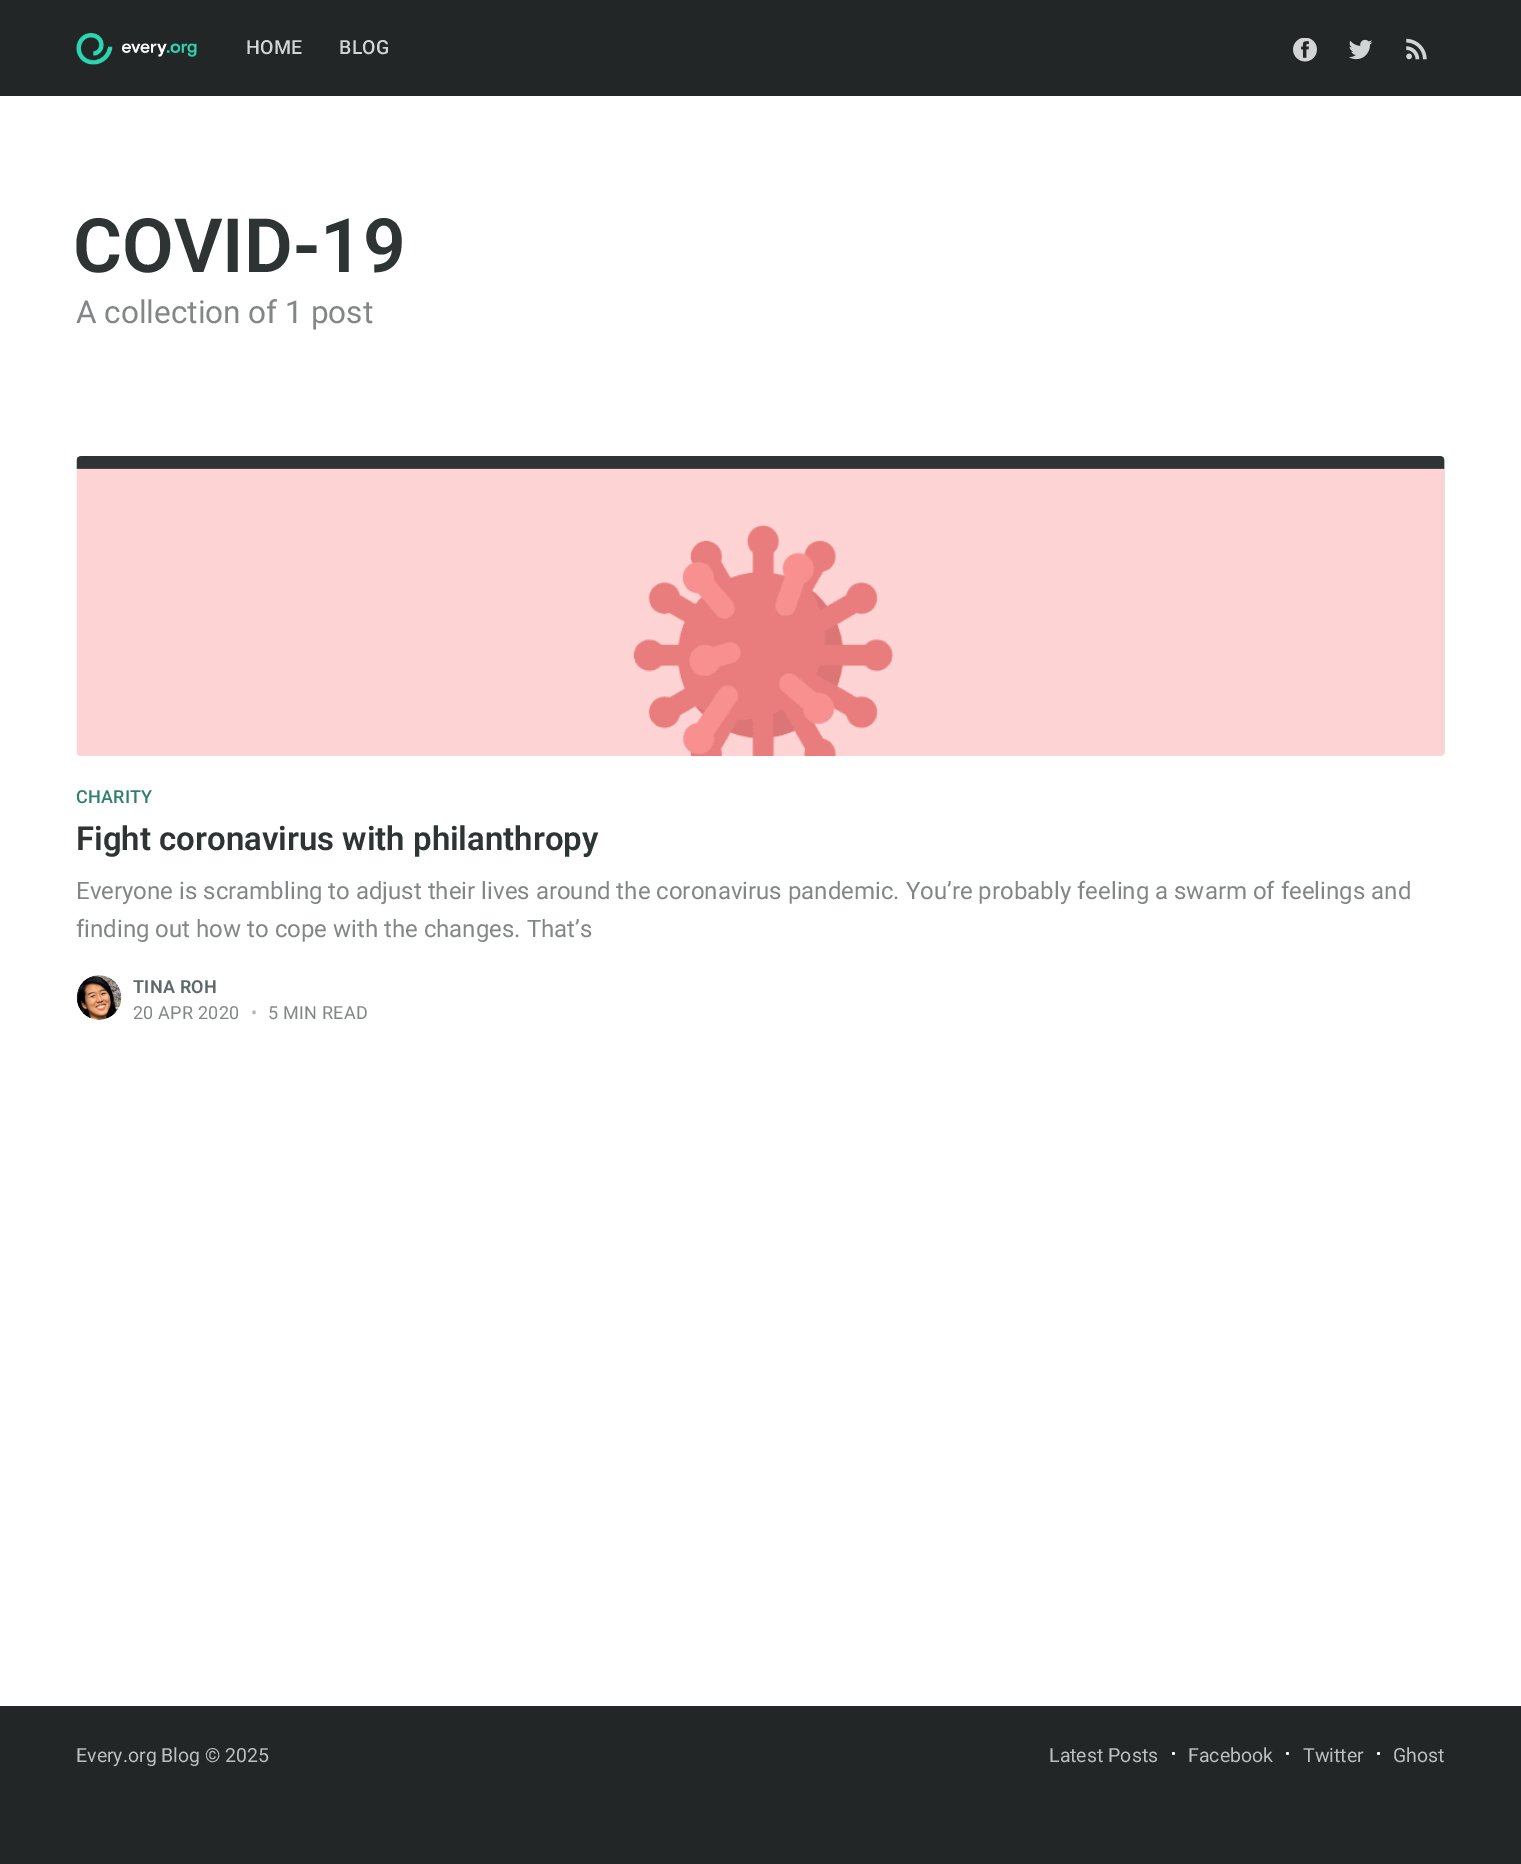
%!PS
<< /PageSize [1521 1864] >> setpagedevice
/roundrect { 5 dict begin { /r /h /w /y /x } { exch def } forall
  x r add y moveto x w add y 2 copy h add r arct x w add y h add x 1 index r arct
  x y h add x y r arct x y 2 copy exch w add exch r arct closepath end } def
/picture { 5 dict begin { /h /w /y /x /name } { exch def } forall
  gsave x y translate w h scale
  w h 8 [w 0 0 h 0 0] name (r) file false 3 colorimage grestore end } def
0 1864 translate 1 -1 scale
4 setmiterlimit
1 setgray
0 0 1521 1864 rectfill
0.133 0.149 0.149 setrgbcolor
0 0 1521 96 rectfill
(img1.rgb) 76 33 121 32 picture
/Roboto-Medium [19.5 0 0 -19.5 0 0] selectfont
0.827 0.831 0.831 setrgbcolor
246 54 moveto 0.25 0 (HOME) ashow
339 54 moveto 0.25 0 (BLOG) ashow
(img2.rgb) 1293 38 24 24 picture
(img3.rgb) 1349 39 24 21 picture
(img4.rgb) 1406 38 21 22 picture
/Roboto-SemiBold [75 0 0 -75 0 0] selectfont
0.18 0.204 0.204 setrgbcolor
73 272 moveto (COVID-19) show
/Roboto-Regular [31.5 0 0 -31.5 0 0] selectfont
0.514 0.525 0.525 setrgbcolor
76 323 moveto (A collection of 1 post) show
0.878 0.882 0.882 setrgbcolor
77 456 1368 300 5 roundrect fill
(img5.rgb) 76 456 1369 300 picture
/Roboto-Medium [18 0 0 -18 0 0] selectfont
0.184 0.502 0.427 setrgbcolor
76 803 moveto 0.25 0 (CHARITY) ashow
/Roboto-SemiBold [33 0 0 -33 0 0] selectfont
0.18 0.204 0.204 setrgbcolor
76 850 moveto (Fight coronavirus with philanthropy) show
/Roboto-Regular [24 0 0 -24 0 0] selectfont
0.514 0.525 0.525 setrgbcolor
76 899 moveto (Everyone is scrambling to adjust their lives around the coronavirus pandemic. You’re probably feeling a swarm of feelings and) show
76 937 moveto (finding out how to cope with the changes. That’s) show
0.98 setgray
newpath 99.5 997.5 22.5 0 360 arc closepath fill
(img6.rgb) 76 975 46 45 picture
/Roboto-SemiBold [18 0 0 -18 0 0] selectfont
0.365 0.412 0.412 setrgbcolor
133 993 moveto 0.25 0 (TINA ROH) ashow
/Roboto-Regular [18 0 0 -18 0 0] selectfont
0.514 0.525 0.525 setrgbcolor
133 1019 moveto 0.25 0 (20 APR 2020) ashow
0.71 0.714 0.714 setrgbcolor
251 1019 moveto 0.25 0 (•) ashow
0.514 0.525 0.525 setrgbcolor
268 1019 moveto 0.25 0 (5 MIN READ) ashow
0.133 0.149 0.149 setrgbcolor
0 1706 1521 158 rectfill
/Roboto-Regular [19.5 0 0 -19.5 0 0] selectfont
0.741 0.745 0.745 setrgbcolor
76 1762 moveto (Every.org Blog © 2025) show
1049 1762 moveto (Latest Posts) show
1 setgray
newpath 1173.5 1753.5 1.5 0 360 arc closepath fill
0.741 0.745 0.745 setrgbcolor
1188 1762 moveto (Facebook) show
1 setgray
newpath 1287.5 1753.5 1.5 0 360 arc closepath fill
0.741 0.745 0.745 setrgbcolor
1303 1762 moveto (Twitter) show
1 setgray
newpath 1378.5 1753.5 1.5 0 360 arc closepath fill
0.741 0.745 0.745 setrgbcolor
1393 1762 moveto (Ghost) show
showpage
